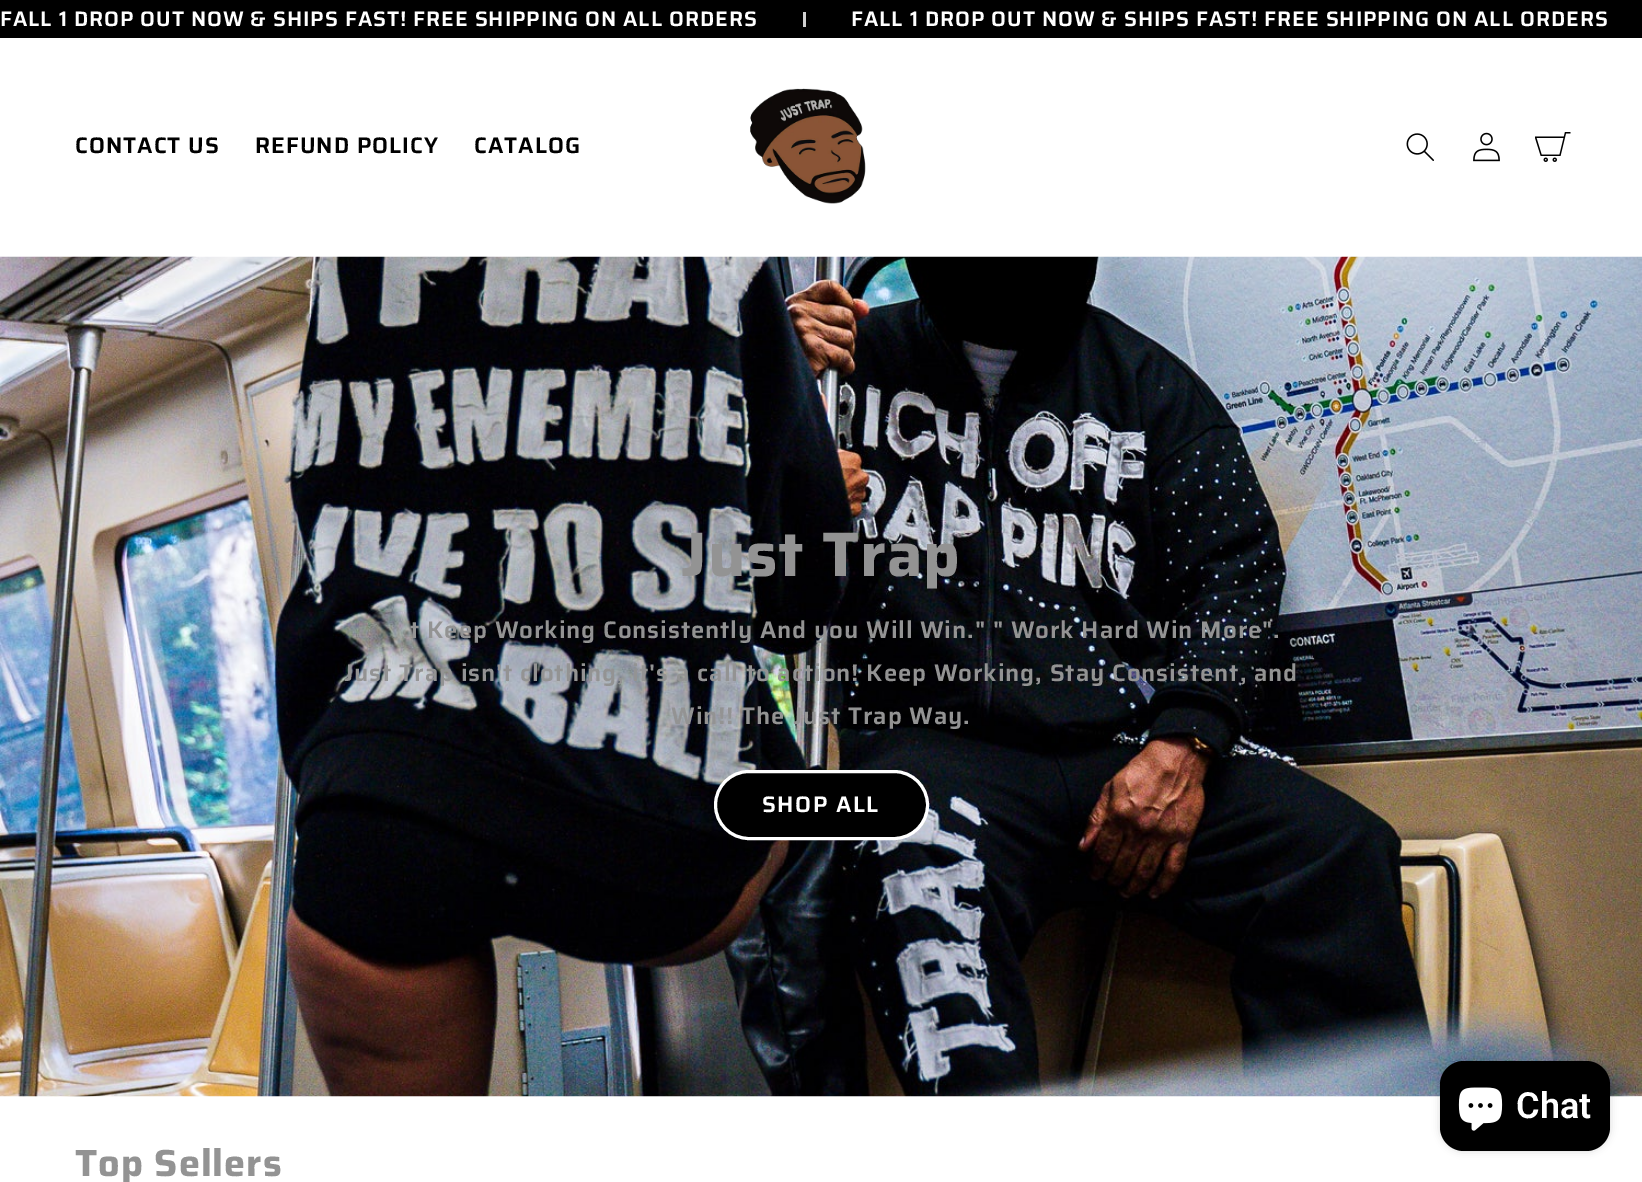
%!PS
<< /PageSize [1642 1182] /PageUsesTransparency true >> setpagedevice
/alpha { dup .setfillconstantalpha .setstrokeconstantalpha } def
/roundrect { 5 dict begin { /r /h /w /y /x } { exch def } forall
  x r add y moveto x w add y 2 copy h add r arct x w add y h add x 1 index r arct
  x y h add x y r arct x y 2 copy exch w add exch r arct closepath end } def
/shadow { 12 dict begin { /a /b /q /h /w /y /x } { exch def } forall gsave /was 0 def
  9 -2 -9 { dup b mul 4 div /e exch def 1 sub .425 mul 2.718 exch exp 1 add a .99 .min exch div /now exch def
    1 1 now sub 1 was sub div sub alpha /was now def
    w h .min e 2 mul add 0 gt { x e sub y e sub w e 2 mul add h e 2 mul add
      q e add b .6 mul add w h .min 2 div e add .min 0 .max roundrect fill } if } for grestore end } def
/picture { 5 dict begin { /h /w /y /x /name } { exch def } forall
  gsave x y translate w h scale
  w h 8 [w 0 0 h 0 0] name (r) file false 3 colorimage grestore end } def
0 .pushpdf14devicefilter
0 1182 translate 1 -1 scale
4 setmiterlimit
1 setgray
0 0 1642 1182 rectfill
0 setgray
0 0 1642 38 rectfill
/Saira-SemiBold [21 0 0 -21 0 0] selectfont
1 setgray
0 26 moveto 0.9 0 (FALL 1 DROP OUT NOW & SHIPS FAST! FREE SHIPPING ON ALL ORDERS) ashow
0.82 setgray
803 12 3 15 rectfill
1 setgray
851 26 moveto 0.9 0 (FALL 1 DROP OUT NOW & SHIPS FAST! FREE SHIPPING ON ALL ORDERS) ashow
/Saira-SemiBold [22.5 0 0 -22.5 0 0] selectfont
0 setgray
75 153 moveto 1 0 (CONTACT US) ashow
255 153 moveto 1 0 (REFUND POLICY) ashow
474 153 moveto 1 0 (CATALOG) ashow
(img1.rgb) 750 88 116 116 picture
(img2.rgb) 1406 133 28 28 picture
(img3.rgb) 1473 132 27 30 picture
(img4.rgb) 1535 132 36 30 picture
(img5.rgb) 0 256 1642 841 picture
/Saira-Bold [63 0 0 -63 0 0] selectfont
0.576 setgray
681 576 moveto 1 0 (Just Trap) ashow
/Saira-SemiBold [24 0 0 -24 0 0] selectfont
410 638 moveto 0.9 0 (t Keep Working Consistently And you Will Win." " Work Hard Win More".) ashow
344 681 moveto 0.9 0 (Just Trap isn't clothing, it's a call to action! Keep Working, Stay Consistent, and) ashow
671 724 moveto 0.9 0 (Win!! The Just Trap Way.) ashow
0 setgray
715.5 771.5 212 67 33.5 roundrect gsave fill grestore
1 setgray
3 setlinewidth
stroke
/Saira-SemiBold [22.5 0 0 -22.5 0 0] selectfont
762 812 moveto 1.5 0 (SHOP ALL) ashow
/Saira-Bold [37.75 0 0 -37.75 0 0] selectfont
0.576 setgray
75 1176 moveto 1 0 (Top Sellers) ashow
0 setgray
1440 1061 170 90 24 4 0.15 shadow
1440 1061 170 90 24 roundrect fill
(img6.rgb) 1458 1087 45 44 picture
/Roboto-SemiBold [36 0 0 -36 0 0] selectfont
1 setgray
1516 1118 moveto (Chat) show
.poppdf14devicefilter showpage
